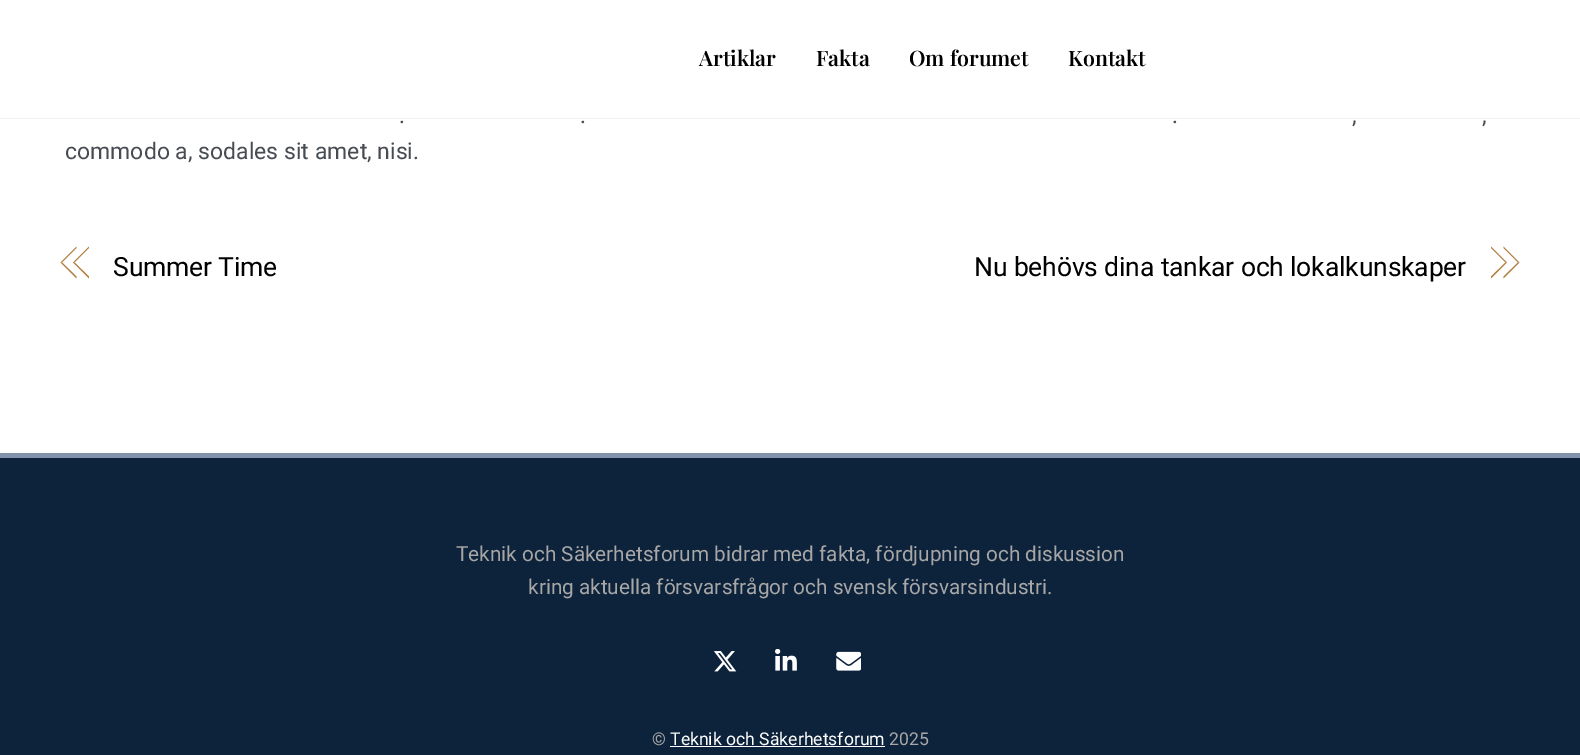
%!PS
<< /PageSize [1580 755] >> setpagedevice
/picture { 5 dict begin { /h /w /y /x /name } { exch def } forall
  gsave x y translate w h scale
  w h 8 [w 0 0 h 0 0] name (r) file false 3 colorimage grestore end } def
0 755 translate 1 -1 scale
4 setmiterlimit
1 setgray
0 0 1580 755 rectfill
0.949 setgray
0 118 1580 1 rectfill
/PlayfairDisplay-SemiBold [21.25 0 0 -21.25 0 0] selectfont
0 setgray
699 66 moveto (Artiklar) show
816 66 moveto (Fakta) show
909 66 moveto (Om forumet) show
1068 66 moveto (Kontakt) show
/Roboto-Regular [23 0 0 -23 0 0] selectfont
0.278 0.298 0.322 setrgbcolor
399 123 moveto (.) show
580 123 moveto (.) show
1172 123 moveto (.) show
1352 123 moveto (,) show
1482 123 moveto (,) show
65 159 moveto (commodo a, sodales sit amet, nisi.) show
0.698 0.502 0.251 setrgbcolor
newpath 60.5 262.5 moveto 76.5 246.5 lineto 76.5 248 lineto 62 262.5 lineto closepath fill
newpath 76.5 278.5 moveto 60.5 262.5 lineto 62 262.5 lineto 76.5 276.5 lineto closepath fill
newpath 73 262.5 moveto 89 246.5 lineto 89 248 lineto 74.5 262.5 lineto closepath fill
newpath 89 278.5 moveto 73 262.5 lineto 74.5 262.5 lineto 89 276.5 lineto closepath fill
/Roboto-Regular [26.5 0 0 -26.5 0 0] selectfont
0 setgray
113 276 moveto -0.15 0 (Summer Time) ashow
974 276 moveto -0.15 0 (Nu behövs dina tankar och lokalkunskaper) ashow
0.698 0.502 0.251 setrgbcolor
newpath 1503.5 246.5 moveto 1519.5 262.5 lineto 1518 262.5 lineto 1503.5 248 lineto closepath fill
newpath 1519.5 262.5 moveto 1503.5 278.5 lineto 1503.5 276.5 lineto 1518 262.5 lineto closepath fill
newpath 1491 246.5 moveto 1507 262.5 lineto 1505.5 262.5 lineto 1491 248 lineto closepath fill
newpath 1507 262.5 moveto 1491 278.5 lineto 1491 276.5 lineto 1505.5 262.5 lineto closepath fill
0.051 0.133 0.231 setrgbcolor
0 458 1580 297 rectfill
0.506 0.58 0.671 setrgbcolor
0 453 1580 5 rectfill
/Roboto-Regular [20.75 0 0 -20.75 0 0] selectfont
0.655 setgray
456 561 moveto (Teknik och Säkerhetsforum bidrar med fakta, fördjupning och diskussion) show
528 594 moveto (kring aktuella försvarsfrågor och svensk försvarsindustri.) show
(img1.rgb) 713 651 24 21 picture
(img2.rgb) 775 649 22 22 picture
(img3.rgb) 836 651 25 20 picture
/Roboto-Regular [17.6 0 0 -17.6 0 0] selectfont
652 745 moveto (©) show
1 setgray
670 745 moveto (Teknik och Säkerhetsforum) show
670 746 215 1 rectfill
0.655 setgray
889 745 moveto (2025) show
showpage
